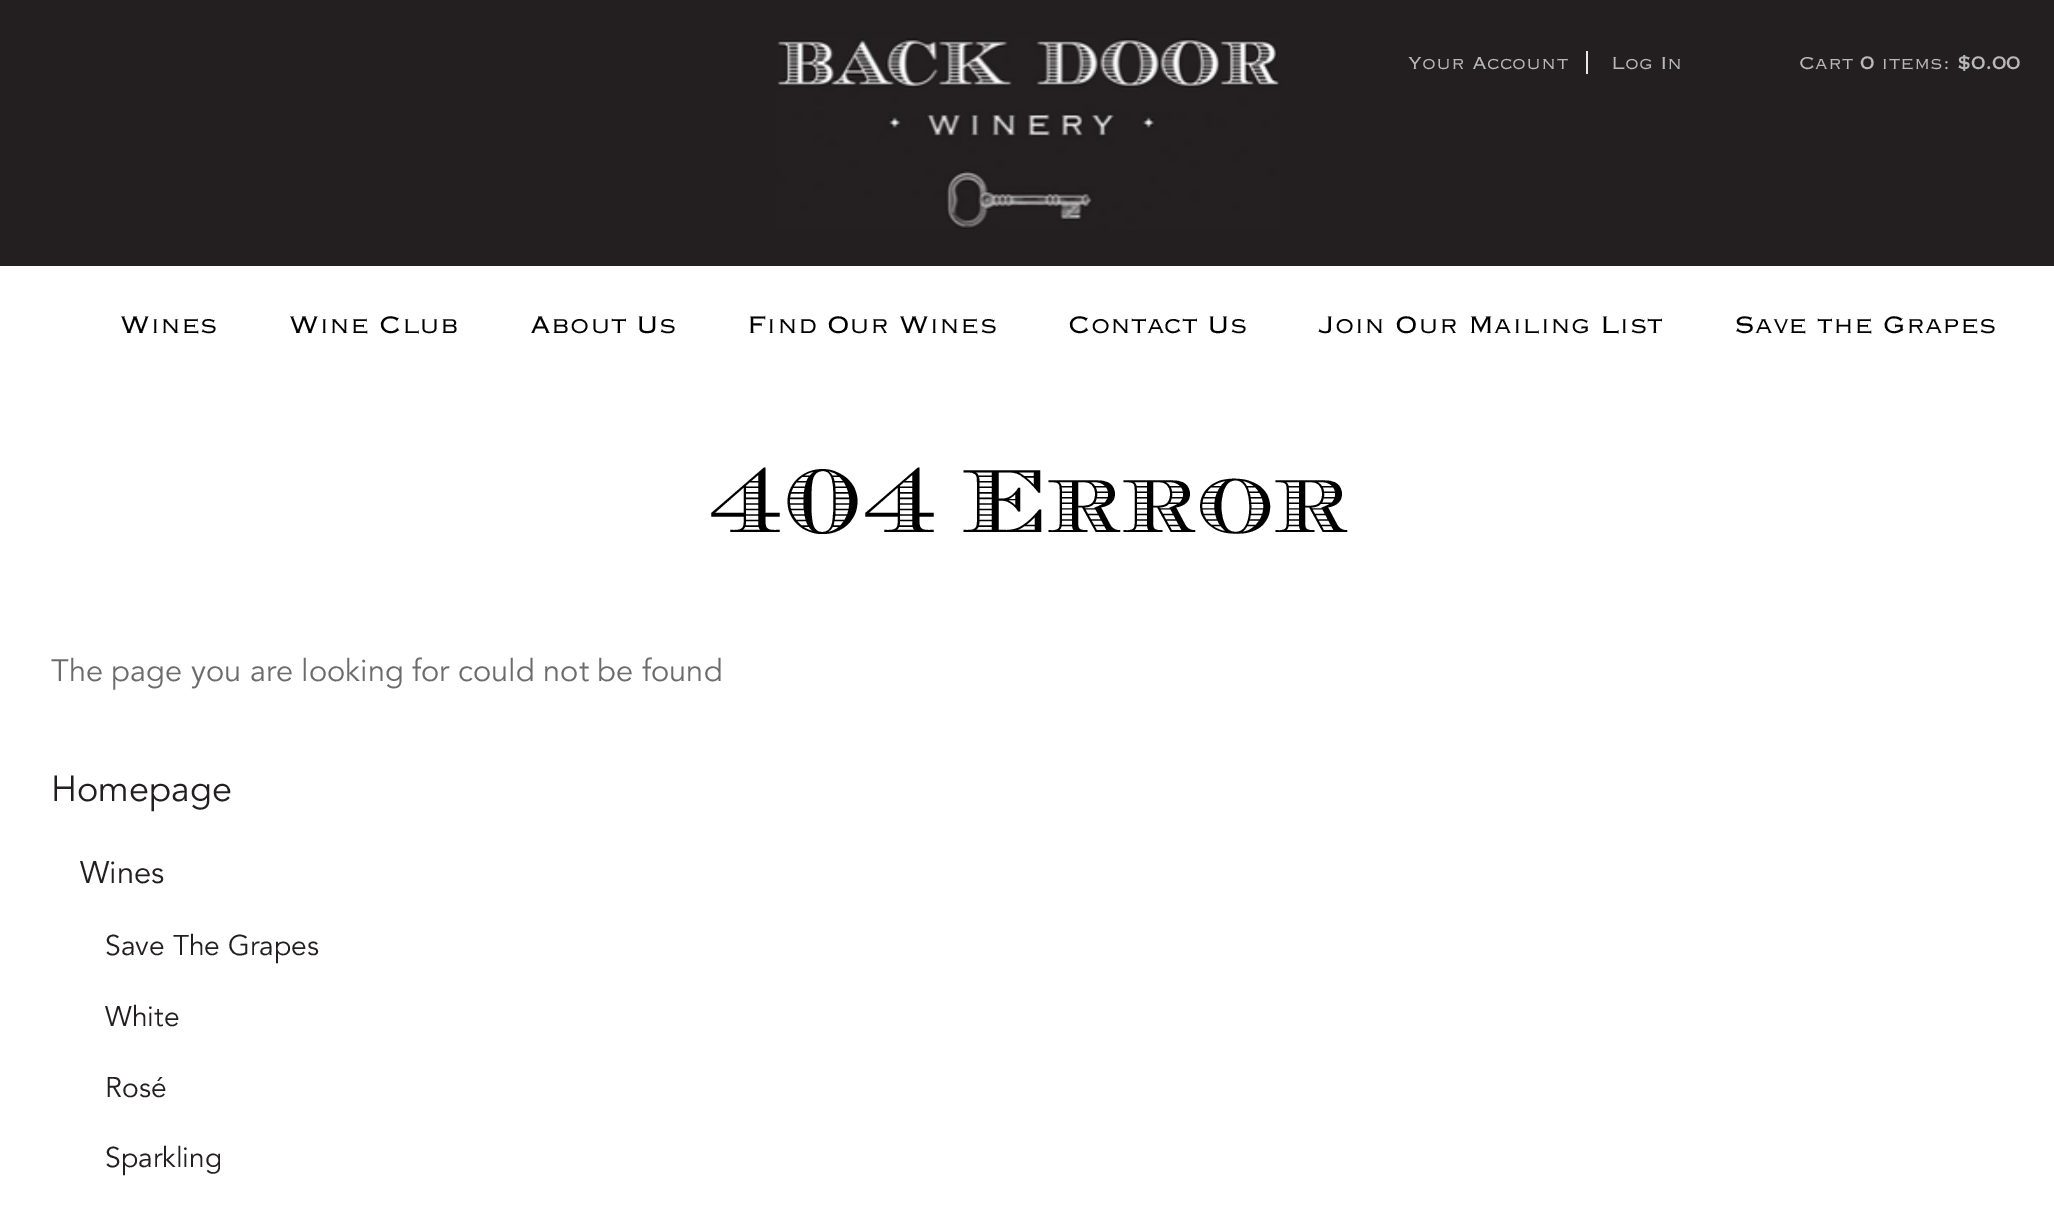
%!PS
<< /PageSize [2054 1207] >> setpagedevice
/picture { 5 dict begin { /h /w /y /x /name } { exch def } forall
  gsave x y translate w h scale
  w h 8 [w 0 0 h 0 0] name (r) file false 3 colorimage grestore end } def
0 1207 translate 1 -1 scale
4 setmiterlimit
1 setgray
0 0 2054 1207 rectfill
0.137 0.122 0.125 setrgbcolor
0 0 2054 266 rectfill
(img1.rgb) 777 38 504 191 picture
0.91 setgray
1586 51 2 23 rectfill
/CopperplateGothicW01-Regular [22.75 0 0 -22.75 0 0] selectfont
0.725 setgray
1408 69 moveto (Your Account) show
1611 69 moveto (Log In) show
1799 69 moveto (Cart) show
/CopperplateGothicW01-Bold [22.75 0 0 -22.75 0 0] selectfont
1860 69 moveto (0) show
/CopperplateGothicW01-Regular [22.75 0 0 -22.75 0 0] selectfont
1881 69 moveto (items:) show
/CopperplateGothicW01-Bold [22.75 0 0 -22.75 0 0] selectfont
1957 69 moveto ($0.00) show
/CopperplateGothicW01-Regular [31.5 0 0 -31.5 0 0] selectfont
0 setgray
120 333 moveto (Wines) show
289 333 moveto (Wine Club) show
530 333 moveto (About Us) show
747 333 moveto (Find Our Wines) show
1068 333 moveto (Contact Us) show
1319 333 moveto (Join Our Mailing List) show
1734 333 moveto (Save the Grapes) show
/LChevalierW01-Regular [92.5 0 0 -92.5 0 0] selectfont
707 532 moveto (404 Error) show
/Avenir-Regular [30.8 0 0 -30.8 0 0] selectfont
0.42 setgray
51 681 moveto (The page you are looking for could not be found) show
/Avenir-Regular [36 0 0 -36 0 0] selectfont
0.137 0.122 0.125 setrgbcolor
51 801 moveto (Homepage) show
/Avenir-Regular [31 0 0 -31 0 0] selectfont
80 883 moveto (Wines) show
/Avenir-Regular [28.25 0 0 -28.25 0 0] selectfont
105 955 moveto (Save The Grapes) show
105 1026 moveto (White) show
105 1097 moveto (Rosé) show
105 1167 moveto (Sparkling) show
showpage
